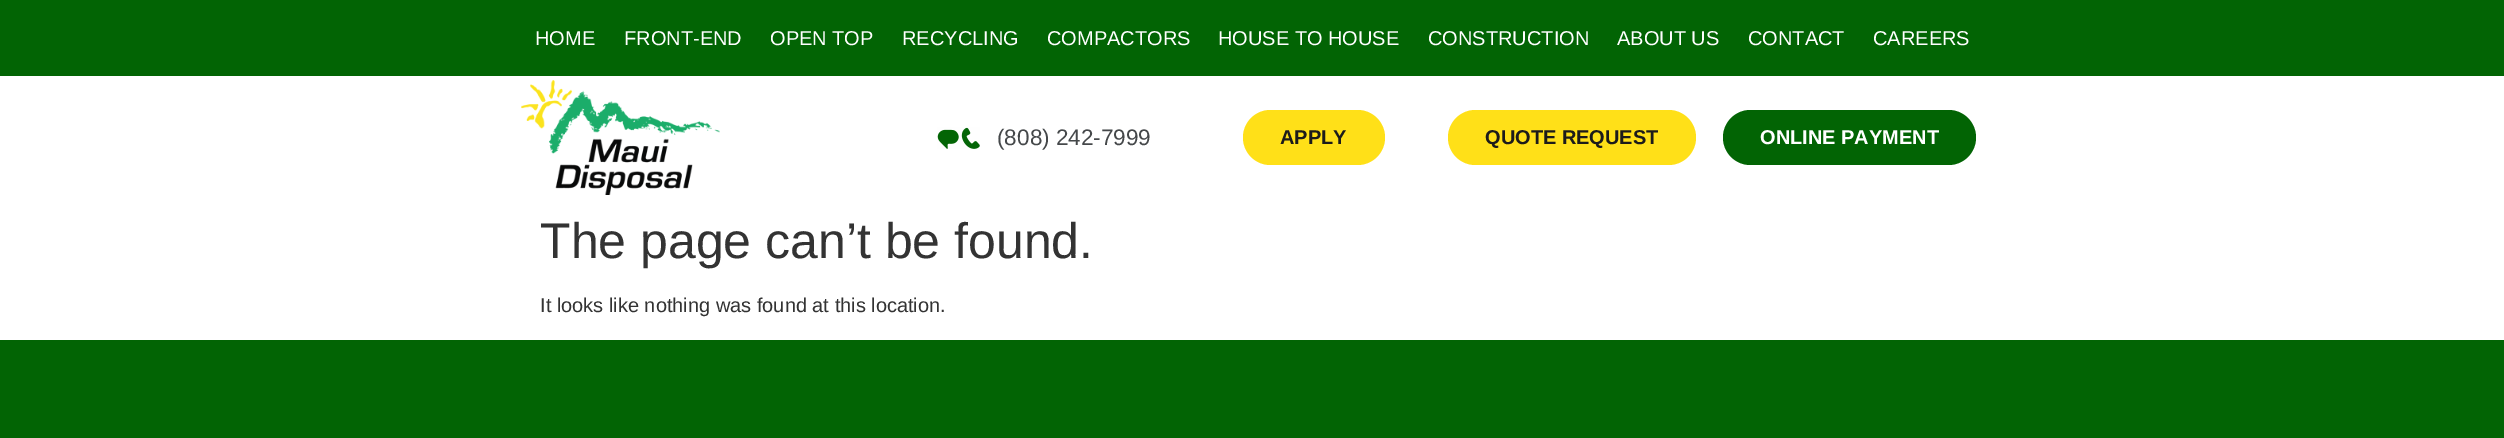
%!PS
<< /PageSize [2504 438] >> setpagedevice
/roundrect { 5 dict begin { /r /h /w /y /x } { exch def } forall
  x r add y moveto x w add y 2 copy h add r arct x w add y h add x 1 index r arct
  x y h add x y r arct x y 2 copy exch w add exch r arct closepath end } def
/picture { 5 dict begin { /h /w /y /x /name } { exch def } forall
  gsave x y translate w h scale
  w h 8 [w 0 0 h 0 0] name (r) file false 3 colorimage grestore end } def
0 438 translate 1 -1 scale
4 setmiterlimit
1 setgray
0 0 2504 438 rectfill
0.008 0.392 0.016 setrgbcolor
0 0 2504 76 rectfill
/LiberationSans-Regular [20 0 0 -20 0 0] selectfont
1 setgray
535 45 moveto (HOME) show
624 45 moveto (FRONT-END) show
770 45 moveto (OPEN TOP) show
902 45 moveto (RECYCLING) show
1047 45 moveto (COMPACTORS) show
1218 45 moveto (HOUSE TO HOUSE) show
1428 45 moveto (CONSTRUCTION) show
1617 45 moveto (ABOUT US) show
1748 45 moveto (CONTACT) show
1873 45 moveto (CAREERS) show
(img1.rgb) 521 80 199 115 picture
(img2.rgb) 937 127 43 22 picture
/LiberationSans-Regular [22.5 0 0 -22.5 0 0] selectfont
0.271 0.282 0.29 setrgbcolor
997 145 moveto (\(808\) 242-7999) show
1 0.878 0.094 setrgbcolor
1243 110 142 55 27.5 roundrect fill
/LiberationSans-Bold [20 0 0 -20 0 0] selectfont
0.11 0.106 0.106 setrgbcolor
1280 144 moveto (APPLY) show
1 0.878 0.094 setrgbcolor
1448 110 248 55 27.5 roundrect fill
0.11 0.106 0.106 setrgbcolor
1485 144 moveto (QUOTE REQUEST) show
0.008 0.392 0.016 setrgbcolor
1723 110 253 55 27.5 roundrect fill
1 setgray
1760 144 moveto (ONLINE PAYMENT) show
/LiberationSans-Regular [50 0 0 -50 0 0] selectfont
0.2 setgray
540 258 moveto (The page can’t be found.) show
/LiberationSans-Regular [20 0 0 -20 0 0] selectfont
540 312 moveto (It looks like nothing was found at this location.) show
0.008 0.392 0.016 setrgbcolor
0 340 2504 98 rectfill
showpage
